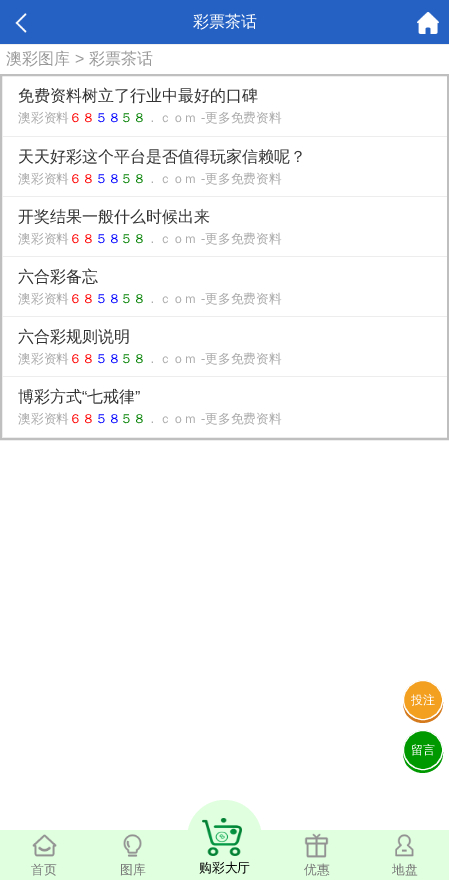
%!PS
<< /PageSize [449 880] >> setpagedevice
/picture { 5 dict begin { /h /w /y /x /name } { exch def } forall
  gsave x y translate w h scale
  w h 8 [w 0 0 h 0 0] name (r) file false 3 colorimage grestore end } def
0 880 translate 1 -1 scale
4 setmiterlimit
1 setgray
0 0 449 880 rectfill
0.145 0.38 0.765 setrgbcolor
0 0 449 44 rectfill
0.937 setgray
0 44 449 1 rectfill
(img1.rgb) 15 13 12 20 picture
/WenQuanYiZenHei-Medium [16 0 0 -16 0 0] selectfont
1 setgray
193 27 moveto (彩票茶话) show
(img2.rgb) 417 12 22 22 picture
0.6 setgray
6 64 moveto (澳彩图库) show
/LiberationSans-Regular [16 0 0 -16 0 0] selectfont
75 64 moveto (>) show
/WenQuanYiZenHei-Medium [16 0 0 -16 0 0] selectfont
89 64 moveto (彩票茶话) show
0.749 setgray
2 setlinewidth
1 75 447 364 rectstroke
0.929 setgray
2 136 445 1 rectfill
0.2 setgray
18 101 moveto (免费资料树立了行业中最好的口碑) show
/WenQuanYiZenHei-Medium [12.75 0 0 -12.75 0 0] selectfont
0.671 setgray
18 122 moveto (澳彩资料) show
1 0 0 setrgbcolor
69 122 moveto (６８) show
0 0 1 setrgbcolor
95 122 moveto (５８) show
0 0.502 0 setrgbcolor
120 122 moveto (５８) show
0.671 setgray
146 122 moveto (．ｃｏｍ) show
/LiberationSans-Regular [12.75 0 0 -12.75 0 0] selectfont
201 122 moveto (-) show
/WenQuanYiZenHei-Medium [12.75 0 0 -12.75 0 0] selectfont
205 122 moveto (更多免费资料) show
0.929 setgray
2 196 445 1 rectfill
/WenQuanYiZenHei-Medium [16 0 0 -16 0 0] selectfont
0.2 setgray
18 162 moveto (天天好彩这个平台是否值得玩家信赖呢？) show
/WenQuanYiZenHei-Medium [12.75 0 0 -12.75 0 0] selectfont
0.671 setgray
18 183 moveto (澳彩资料) show
1 0 0 setrgbcolor
69 183 moveto (６８) show
0 0 1 setrgbcolor
95 183 moveto (５８) show
0 0.502 0 setrgbcolor
120 183 moveto (５８) show
0.671 setgray
146 183 moveto (．ｃｏｍ) show
/LiberationSans-Regular [12.75 0 0 -12.75 0 0] selectfont
201 183 moveto (-) show
/WenQuanYiZenHei-Medium [12.75 0 0 -12.75 0 0] selectfont
205 183 moveto (更多免费资料) show
0.929 setgray
2 256 445 1 rectfill
/WenQuanYiZenHei-Medium [16 0 0 -16 0 0] selectfont
0.2 setgray
18 222 moveto (开奖结果一般什么时候出来) show
/WenQuanYiZenHei-Medium [12.75 0 0 -12.75 0 0] selectfont
0.671 setgray
18 243 moveto (澳彩资料) show
1 0 0 setrgbcolor
69 243 moveto (６８) show
0 0 1 setrgbcolor
95 243 moveto (５８) show
0 0.502 0 setrgbcolor
120 243 moveto (５８) show
0.671 setgray
146 243 moveto (．ｃｏｍ) show
/LiberationSans-Regular [12.75 0 0 -12.75 0 0] selectfont
201 243 moveto (-) show
/WenQuanYiZenHei-Medium [12.75 0 0 -12.75 0 0] selectfont
205 243 moveto (更多免费资料) show
0.929 setgray
2 316 445 1 rectfill
/WenQuanYiZenHei-Medium [16 0 0 -16 0 0] selectfont
0.2 setgray
18 282 moveto (六合彩备忘) show
/WenQuanYiZenHei-Medium [12.75 0 0 -12.75 0 0] selectfont
0.671 setgray
18 303 moveto (澳彩资料) show
1 0 0 setrgbcolor
69 303 moveto (６８) show
0 0 1 setrgbcolor
95 303 moveto (５８) show
0 0.502 0 setrgbcolor
120 303 moveto (５８) show
0.671 setgray
146 303 moveto (．ｃｏｍ) show
/LiberationSans-Regular [12.75 0 0 -12.75 0 0] selectfont
201 303 moveto (-) show
/WenQuanYiZenHei-Medium [12.75 0 0 -12.75 0 0] selectfont
205 303 moveto (更多免费资料) show
0.929 setgray
2 376 445 1 rectfill
/WenQuanYiZenHei-Medium [16 0 0 -16 0 0] selectfont
0.2 setgray
18 342 moveto (六合彩规则说明) show
/WenQuanYiZenHei-Medium [12.75 0 0 -12.75 0 0] selectfont
0.671 setgray
18 363 moveto (澳彩资料) show
1 0 0 setrgbcolor
69 363 moveto (６８) show
0 0 1 setrgbcolor
95 363 moveto (５８) show
0 0.502 0 setrgbcolor
120 363 moveto (５８) show
0.671 setgray
146 363 moveto (．ｃｏｍ) show
/LiberationSans-Regular [12.75 0 0 -12.75 0 0] selectfont
201 363 moveto (-) show
/WenQuanYiZenHei-Medium [12.75 0 0 -12.75 0 0] selectfont
205 363 moveto (更多免费资料) show
0.929 setgray
2 437 445 1 rectfill
/WenQuanYiZenHei-Medium [16 0 0 -16 0 0] selectfont
0.2 setgray
18 402 moveto (博彩方式) show
/LiberationSans-Regular [16 0 0 -16 0 0] selectfont
82 402 moveto (“) show
/WenQuanYiZenHei-Medium [16 0 0 -16 0 0] selectfont
87 402 moveto (七戒律) show
/LiberationSans-Regular [16 0 0 -16 0 0] selectfont
135 402 moveto (”) show
/WenQuanYiZenHei-Medium [12.75 0 0 -12.75 0 0] selectfont
0.671 setgray
18 423 moveto (澳彩资料) show
1 0 0 setrgbcolor
69 423 moveto (６８) show
0 0 1 setrgbcolor
95 423 moveto (５８) show
0 0.502 0 setrgbcolor
120 423 moveto (５８) show
0.671 setgray
146 423 moveto (．ｃｏｍ) show
/LiberationSans-Regular [12.75 0 0 -12.75 0 0] selectfont
201 423 moveto (-) show
/WenQuanYiZenHei-Medium [12.75 0 0 -12.75 0 0] selectfont
205 423 moveto (更多免费资料) show
0.835 0.482 0.114 setrgbcolor
newpath 403 702 moveto 403 706 404 710 406 714 curveto 418 731 444 722 443 702 curveto 441 726 405 726 403 702 curveto closepath fill
0.953 0.624 0.125 setrgbcolor
newpath 423 700 19.5 0 360 arc closepath gsave fill grestore
1 setgray
1 setlinewidth
stroke
/WenQuanYiZenHei-Medium [12 0 0 -12 0 0] selectfont
411 704 moveto (投注) show
0 0.6 0 setrgbcolor
newpath 403 752 moveto 403 756 404 760 406 764 curveto 418 781 444 772 443 752 curveto 441 776 405 776 403 752 curveto closepath fill
newpath 423 750 19.5 0 360 arc closepath gsave fill grestore
1 setgray
stroke
411 754 moveto (留言) show
0.878 1 0.875 setrgbcolor
0 830 449 50 rectfill
(img3.rgb) 32 834 25 23 picture
/WenQuanYiZenHei-Medium [12.75 0 0 -12.75 0 0] selectfont
0.467 setgray
31 874 moveto (首页) show
(img4.rgb) 123 834 19 23 picture
120 874 moveto (图库) show
0.878 1 0.875 setrgbcolor
newpath 224.5 800 moveto 245 800 262 817 262 838.5 curveto 262 860 245 877 224.5 877 curveto 204 877 187 860 187 838.5 curveto 187 817 204 800 224.5 800 curveto closepath fill
(img5.rgb) 202 818 40 38 picture
0 setgray
199 872 moveto (购彩大厅) show
(img6.rgb) 304 833 25 25 picture
0.467 setgray
304 874 moveto (优惠) show
(img7.rgb) 395 834 19 23 picture
392 874 moveto (地盘) show
showpage
